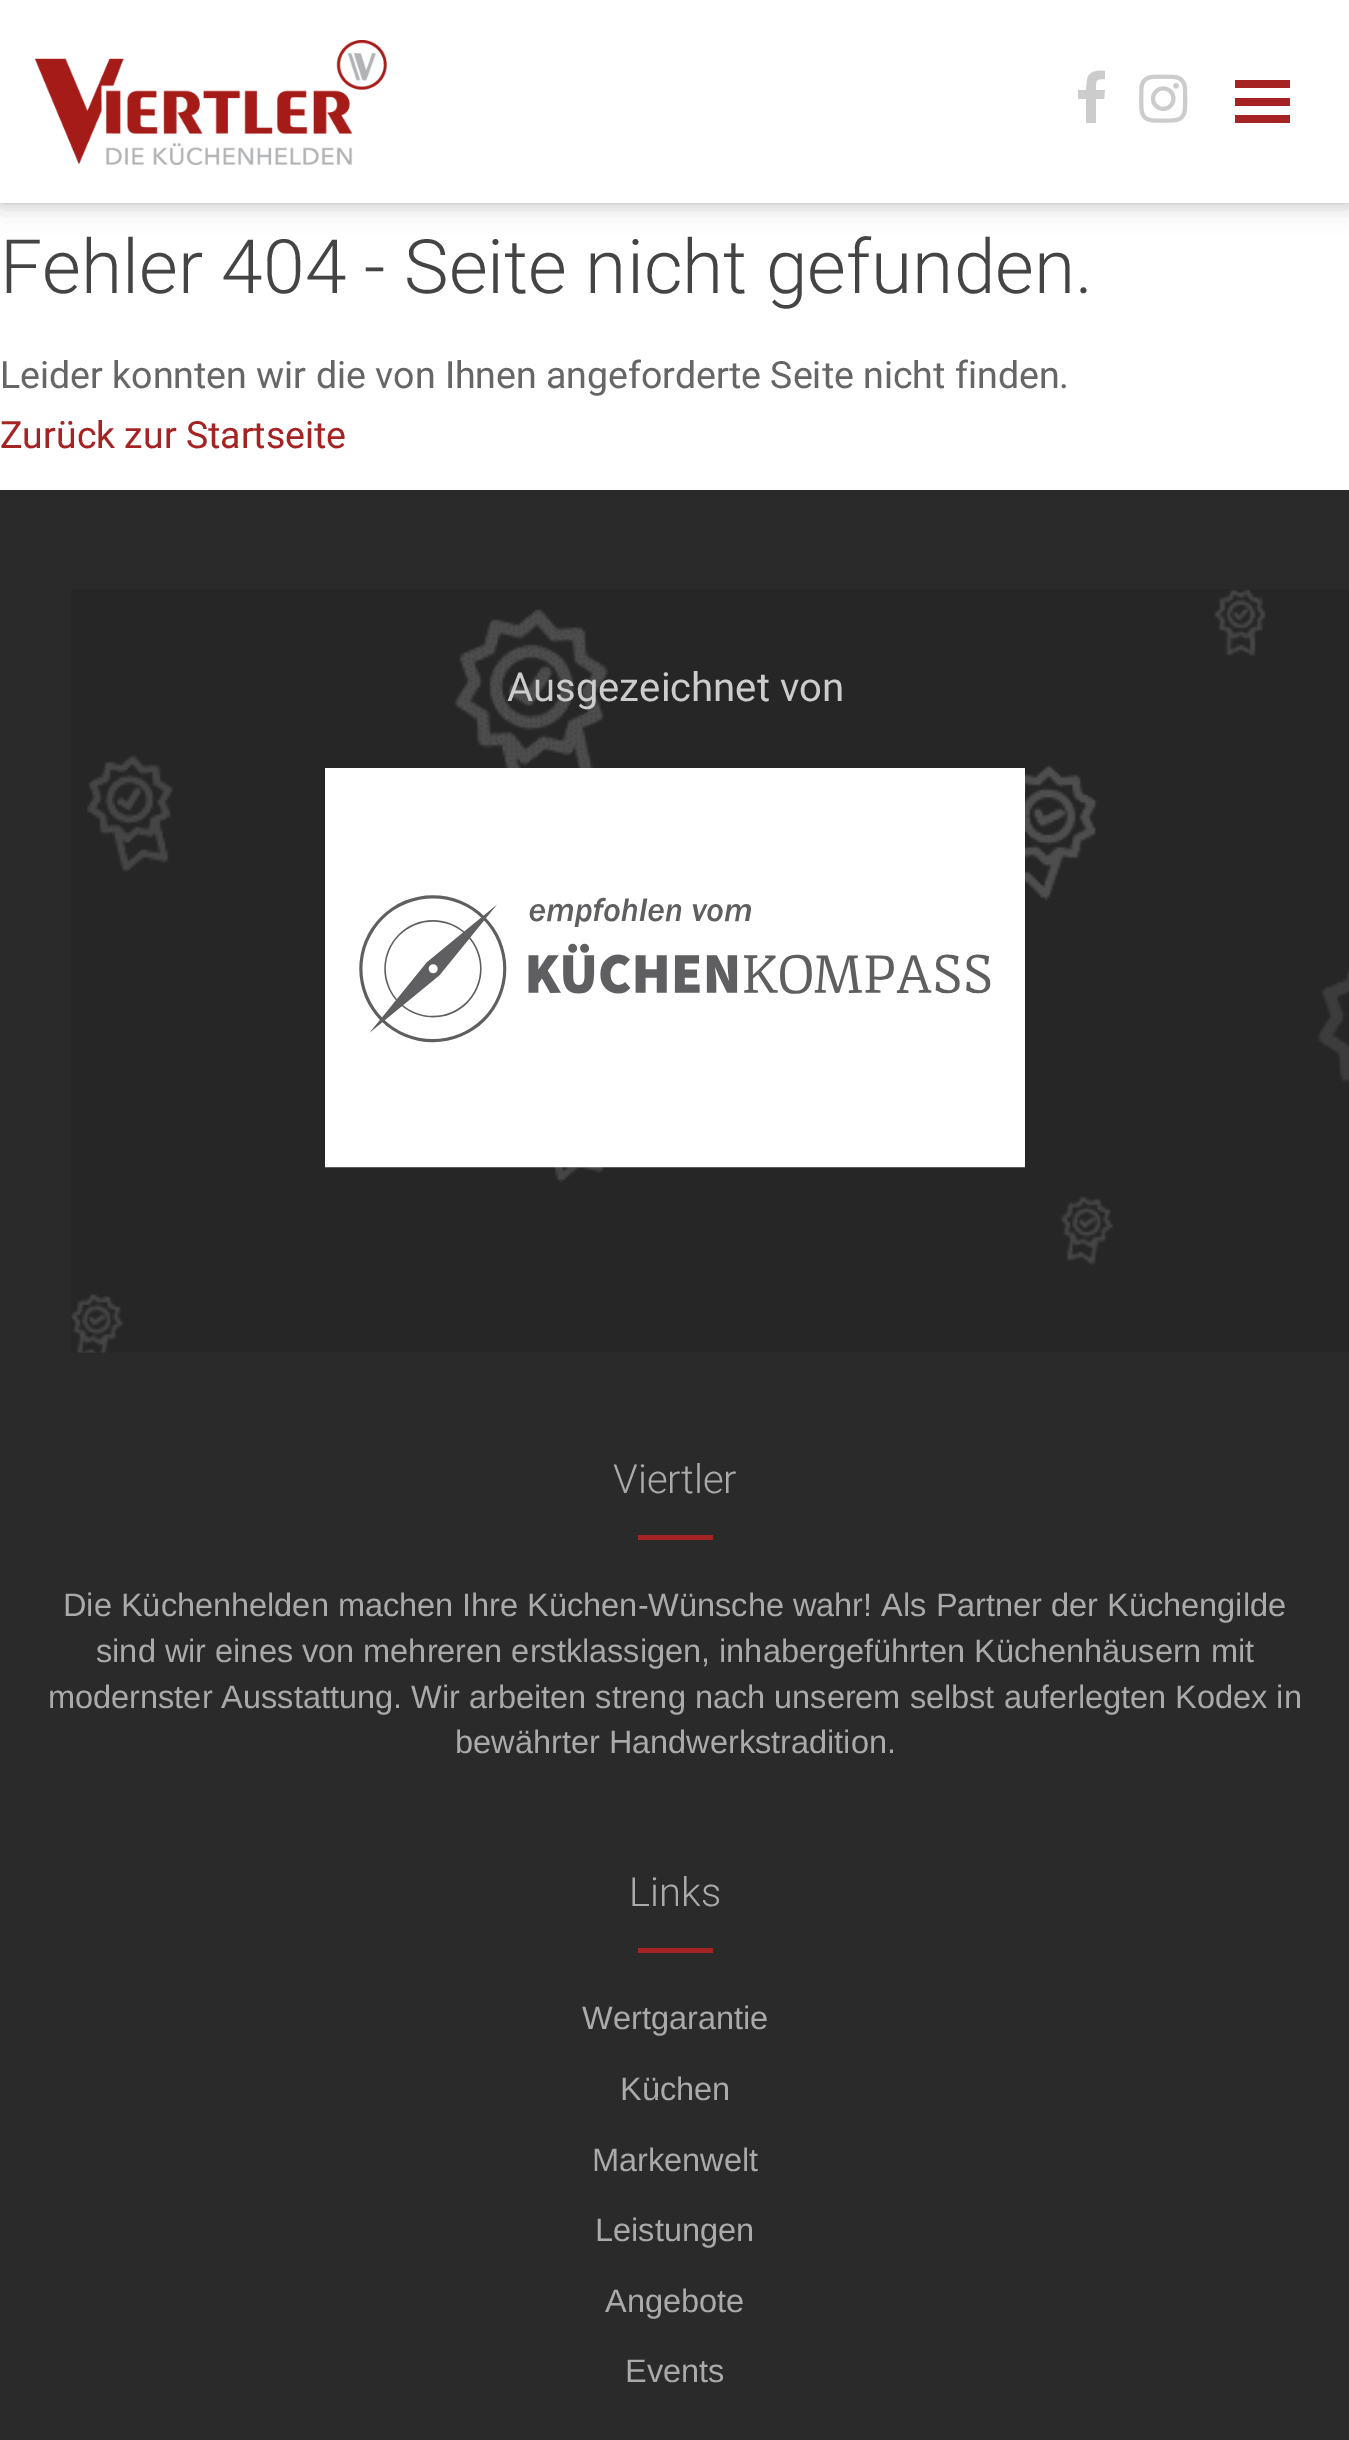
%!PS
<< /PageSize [1349 2440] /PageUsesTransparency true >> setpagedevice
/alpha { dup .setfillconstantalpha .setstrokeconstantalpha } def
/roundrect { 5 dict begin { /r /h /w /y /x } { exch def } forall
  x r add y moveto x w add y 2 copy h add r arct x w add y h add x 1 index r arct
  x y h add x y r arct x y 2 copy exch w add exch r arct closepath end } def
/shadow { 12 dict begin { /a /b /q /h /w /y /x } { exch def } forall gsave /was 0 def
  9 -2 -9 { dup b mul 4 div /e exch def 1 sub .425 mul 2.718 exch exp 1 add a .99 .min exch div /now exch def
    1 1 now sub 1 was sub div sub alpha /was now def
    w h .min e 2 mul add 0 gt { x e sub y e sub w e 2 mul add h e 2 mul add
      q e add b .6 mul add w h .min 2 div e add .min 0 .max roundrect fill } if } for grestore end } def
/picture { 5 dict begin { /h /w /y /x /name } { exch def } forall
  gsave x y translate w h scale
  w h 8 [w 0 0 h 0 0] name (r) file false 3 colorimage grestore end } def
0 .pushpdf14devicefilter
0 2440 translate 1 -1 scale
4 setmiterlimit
1 setgray
0 0 1349 2440 rectfill
0 setgray
0 5 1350 203 0 12.5 0.12 shadow
0 0 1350 203 0 6 0.16 shadow
1 setgray
0 0 1349 203 rectfill
(img1.rgb) 35 40 352 125 picture
0.8 setgray
newpath 1105 71 moveto 1105 79 lineto 1095 79 1096 80 1096 90 curveto 1105 90 lineto 1104 99 lineto 1096 99 lineto 1096 123 lineto 1086 123 lineto 1086 99 lineto 1078 99 lineto 1078 90 lineto 1086 90 lineto 1087 80 lineto 1088 71 1098 70 1105 71 curveto closepath fill
(img2.rgb) 1139 74 49 49 picture
0.647 0.137 0.137 setrgbcolor
1235 80 55 8 rectfill
1235 98 55 8 rectfill
1235 115 55 8 rectfill
/Roboto-Light [75 0 0 -75 0 0] selectfont
0.267 setgray
0 293 moveto (Fehler 404 - Seite nicht gefunden.) show
/Roboto-Regular [37.5 0 0 -37.5 0 0] selectfont
0.4 setgray
0 388 moveto (Leider konnten wir die von Ihnen angeforderte Seite nicht finden.) show
0.647 0.137 0.137 setrgbcolor
0 448 moveto (Zurück zur Startseite) show
0.165 setgray
0 490 1349 1950 rectfill
(img3.rgb) 71 589 1278 764 picture
/Roboto-Regular [40 0 0 -40 0 0] selectfont
0.8 setgray
507 701 moveto (Ausgezeichnet von) show
(img4.rgb) 325 768 700 400 picture
/Roboto-Light [40 0 0 -40 0 0] selectfont
0.667 setgray
613 1493 moveto (Viertler) show
0.647 0.137 0.137 setrgbcolor
638 1535 75 5 rectfill
/LiberationSans-Regular [32.5 0 0 -32.5 0 0] selectfont
0.667 setgray
63 1616 moveto (Die Küchenhelden machen Ihre Küchen-Wünsche wahr! Als Partner der Küchengilde) show
96 1662 moveto (sind wir eines von mehreren erstklassigen, inhabergeführten Küchenhäusern mit) show
48 1708 moveto (modernster Ausstattung. Wir arbeiten streng nach unserem selbst auferlegten Kodex in) show
455 1753 moveto (bewährter Handwerkstradition.) show
/Roboto-Light [40 0 0 -40 0 0] selectfont
629 1906 moveto (Links) show
0.647 0.137 0.137 setrgbcolor
638 1948 75 5 rectfill
/LiberationSans-Regular [32.5 0 0 -32.5 0 0] selectfont
0.667 setgray
582 2029 moveto (Wertgarantie) show
620 2100 moveto (Küchen) show
592 2171 moveto (Markenwelt) show
595 2241 moveto (Leistungen) show
605 2312 moveto (Angebote) show
625 2382 moveto (Events) show
.poppdf14devicefilter showpage
